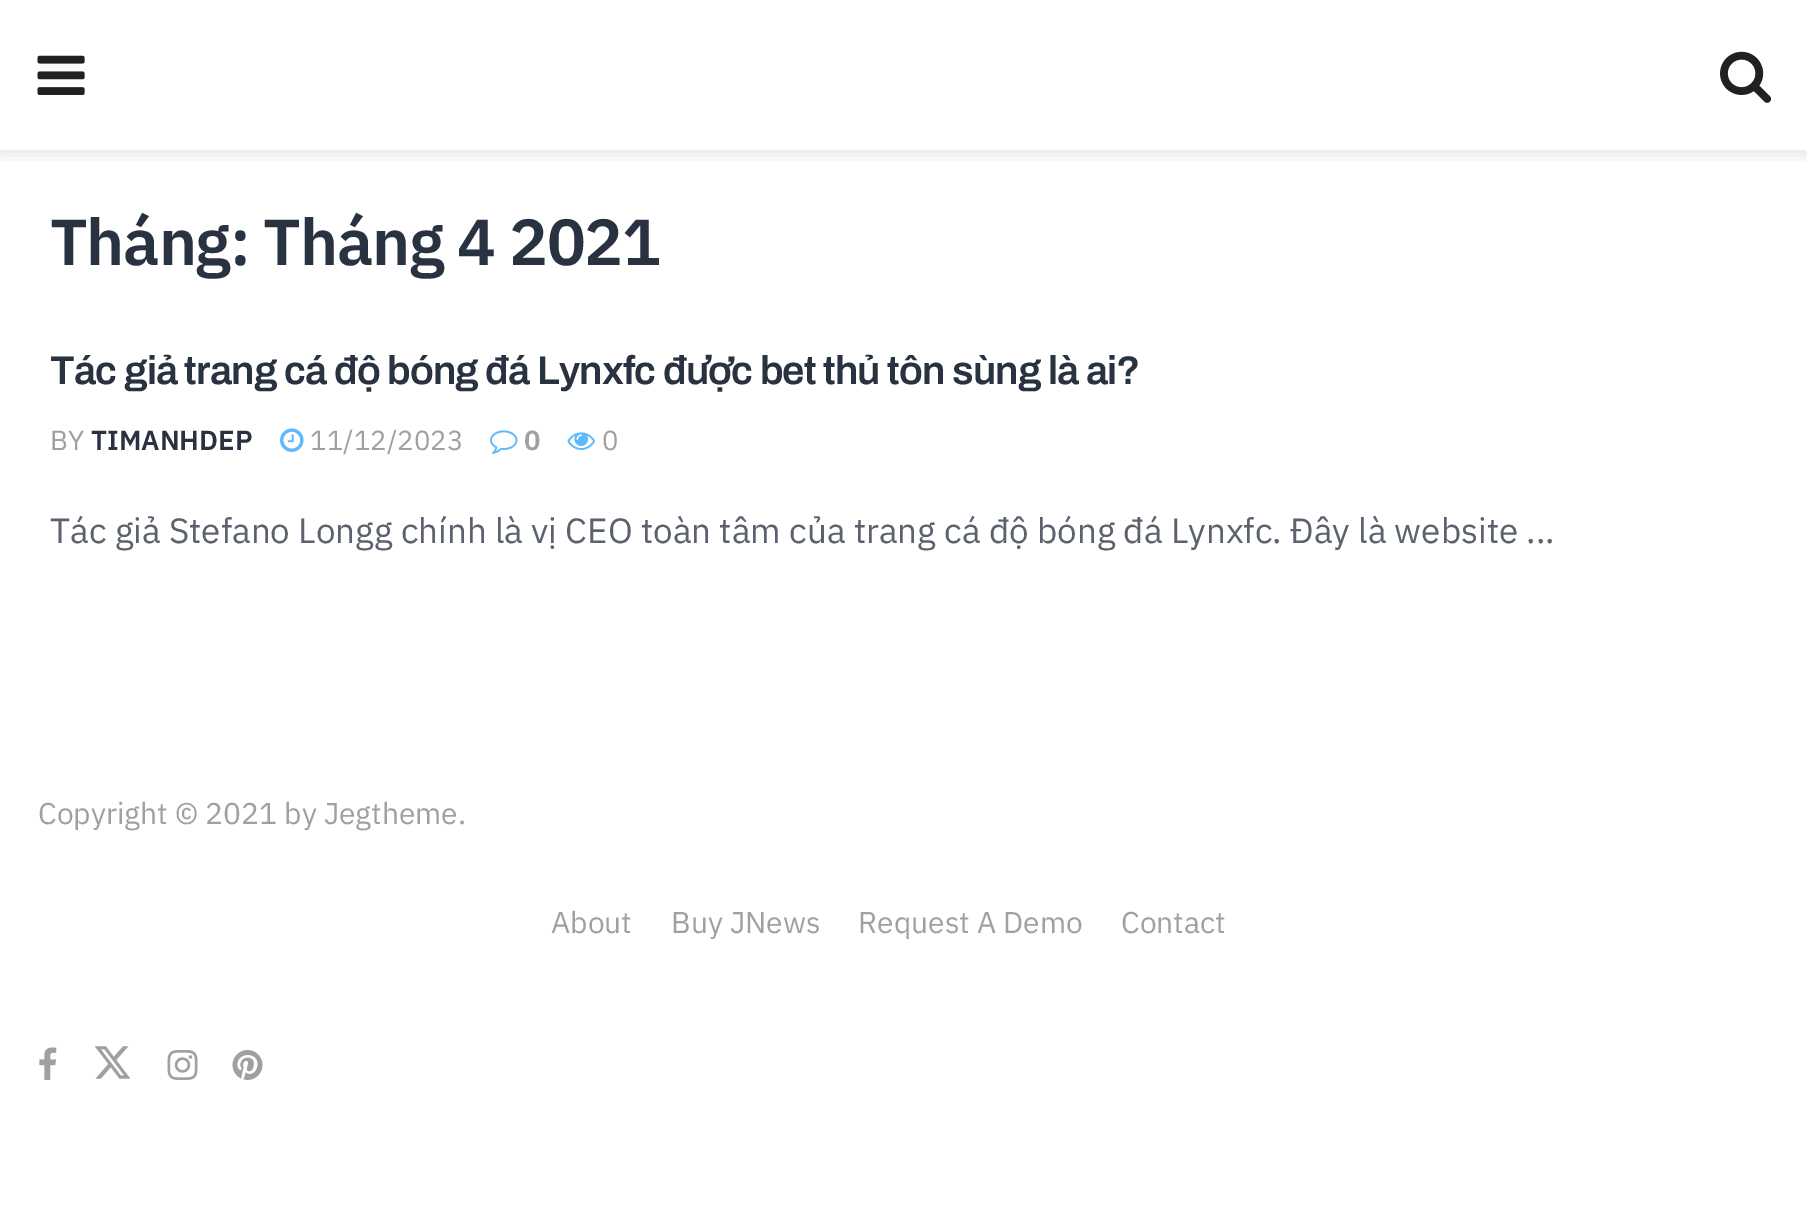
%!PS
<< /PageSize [1807 1221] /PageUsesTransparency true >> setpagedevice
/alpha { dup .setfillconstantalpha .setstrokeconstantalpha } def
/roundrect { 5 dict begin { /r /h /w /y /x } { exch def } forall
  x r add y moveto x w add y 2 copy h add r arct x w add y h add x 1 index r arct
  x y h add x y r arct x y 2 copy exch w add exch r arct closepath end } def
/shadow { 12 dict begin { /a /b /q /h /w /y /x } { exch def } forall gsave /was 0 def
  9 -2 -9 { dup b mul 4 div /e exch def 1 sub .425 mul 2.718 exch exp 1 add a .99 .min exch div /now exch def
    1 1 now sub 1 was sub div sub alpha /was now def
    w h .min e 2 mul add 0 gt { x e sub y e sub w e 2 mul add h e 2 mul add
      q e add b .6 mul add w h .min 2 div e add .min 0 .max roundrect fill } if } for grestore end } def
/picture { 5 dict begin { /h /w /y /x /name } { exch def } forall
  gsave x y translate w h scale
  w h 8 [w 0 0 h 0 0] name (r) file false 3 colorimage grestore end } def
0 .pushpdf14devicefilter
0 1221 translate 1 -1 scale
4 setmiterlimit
1 setgray
0 0 1807 1221 rectfill
gsave
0 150 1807 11 rectclip
0 setgray
0 5 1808 150 0 7.5 0.1 shadow
grestore
(img1.rgb) 37 55 48 40 picture
(img2.rgb) 1720 51 52 52 picture
/IBMPlexSans-SemiBold [65 0 0 -65 0 0] selectfont
0.161 0.196 0.255 setrgbcolor
50 265 moveto -1.25 0 (Tháng: Tháng 4 2021) ashow
/Archivo-SemiBold [40 0 0 -40 0 0] selectfont
50 384 moveto -0.8 0 (Tác giả trang cá độ bóng đá Lynxfc được bet thủ tôn sùng là ai?) ashow
/IBMPlexSans-Regular [27.5 0 0 -27.5 0 0] selectfont
0.627 setgray
50 450 moveto (BY) show
/IBMPlexSans-SemiBold [27.5 0 0 -27.5 0 0] selectfont
0.161 0.196 0.255 setrgbcolor
91 450 moveto (TIMANHDEP) show
(img3.rgb) 280 428 24 24 picture
/IBMPlexSans-Regular [27.5 0 0 -27.5 0 0] selectfont
0.627 setgray
310 450 moveto (11/12/2023) show
(img4.rgb) 490 430 28 24 picture
/IBMPlexSans-SemiBold [27.5 0 0 -27.5 0 0] selectfont
524 450 moveto (0) show
(img5.rgb) 567 432 28 18 picture
/IBMPlexSans-Regular [27.5 0 0 -27.5 0 0] selectfont
602 450 moveto (0) show
/IBMPlexSans-Regular [35 0 0 -35 0 0] selectfont
0.357 0.384 0.431 setrgbcolor
50 543 moveto (Tác giả Stefano Longg chính là vị CEO toàn tâm của trang cá độ bóng đá Lynxfc. Đây là website ...) show
/IBMPlexSans-Regular [30 0 0 -30 0 0] selectfont
0.627 setgray
38 824 moveto (Copyright © 2021 by Jegtheme.) show
551 933 moveto (About) show
671 933 moveto (Buy JNews) show
858 933 moveto (Request A Demo) show
1121 933 moveto (Contact) show
(img6.rgb) 39 1047 18 33 picture
(img7.rgb) 94 1046 37 33 picture
(img8.rgb) 167 1050 31 30 picture
(img9.rgb) 232 1050 31 30 picture
.poppdf14devicefilter showpage
